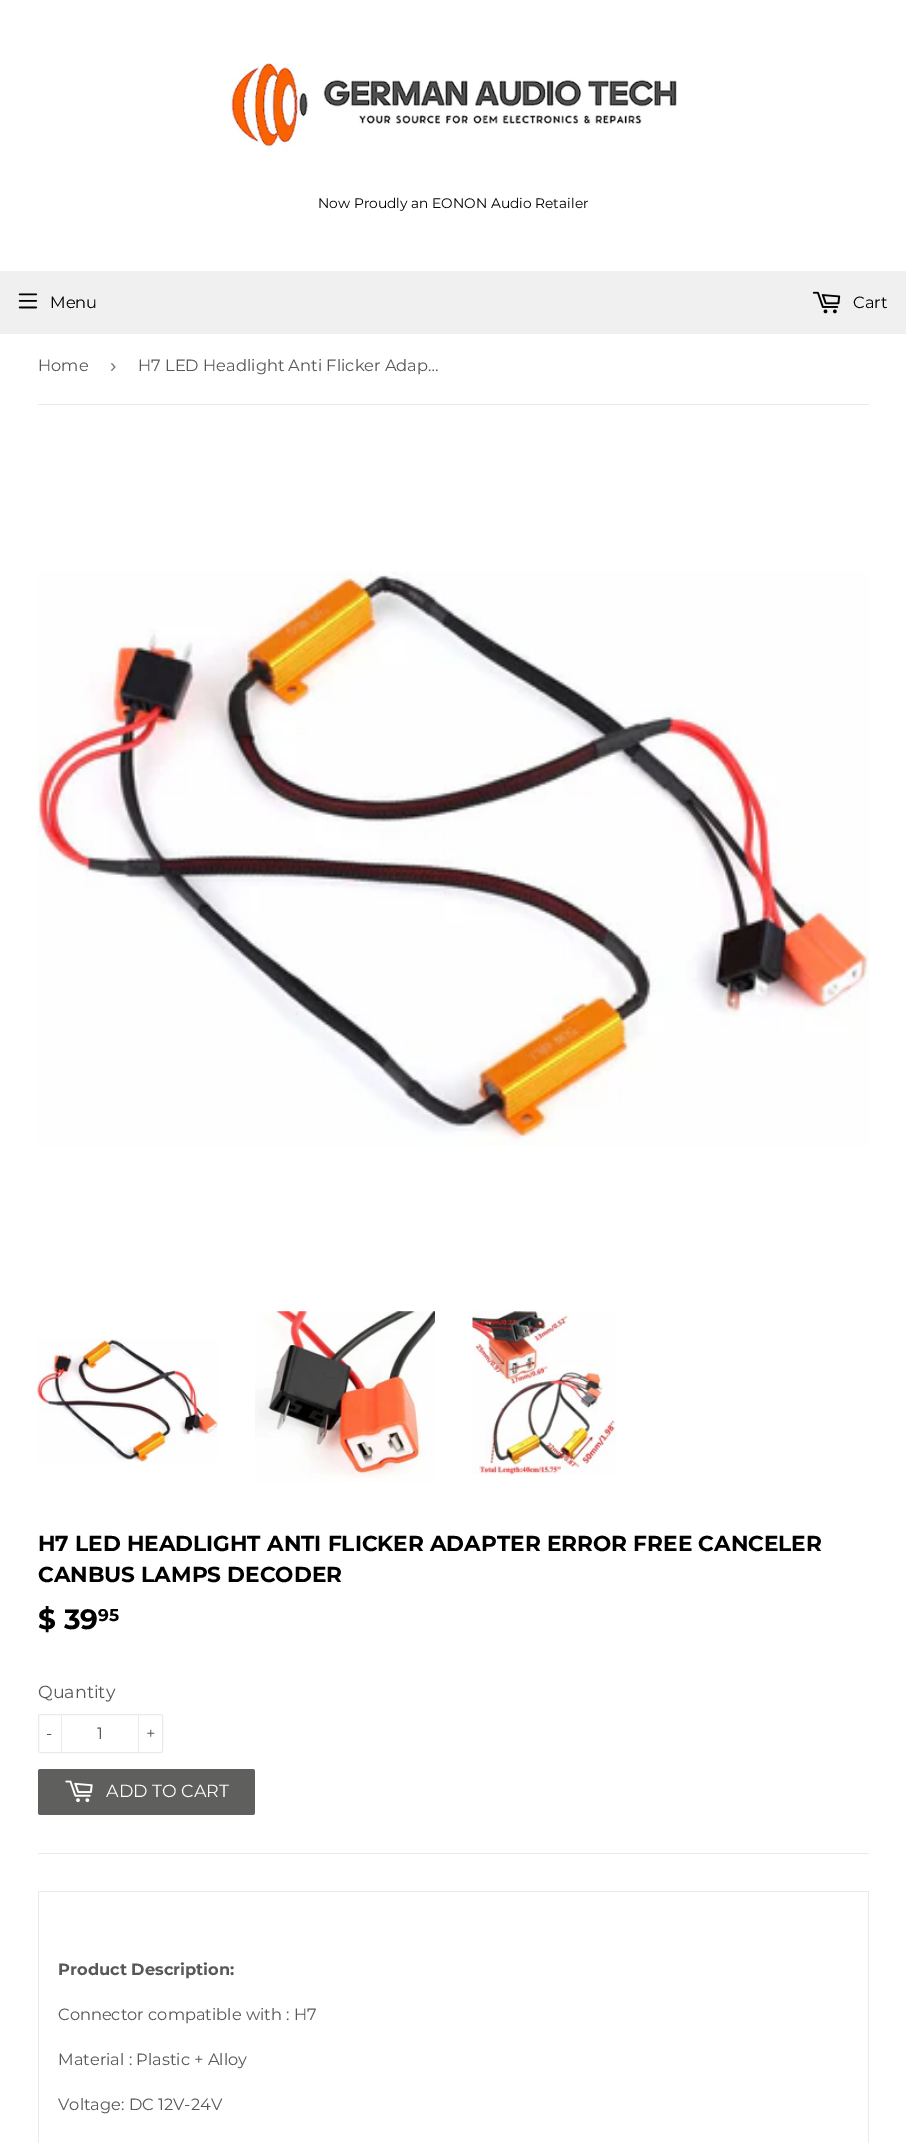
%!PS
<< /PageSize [906 2143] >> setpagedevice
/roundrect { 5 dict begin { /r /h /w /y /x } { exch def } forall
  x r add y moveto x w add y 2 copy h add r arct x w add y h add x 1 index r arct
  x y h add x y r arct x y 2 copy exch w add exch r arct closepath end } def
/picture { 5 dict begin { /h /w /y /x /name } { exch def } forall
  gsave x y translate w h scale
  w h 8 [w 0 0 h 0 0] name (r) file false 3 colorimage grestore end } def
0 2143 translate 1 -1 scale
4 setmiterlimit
1 setgray
0 0 906 2143 rectfill
(img1.rgb) 230 62 447 89 picture
/Montserrat-Regular [13.8 0 0 -13.8 0 0] selectfont
0 setgray
318 208 moveto (Now Proudly an EONON Audio Retailer) show
0.941 setgray
0 271 906 63 rectfill
(img2.rgb) 18 293 20 16 picture
/Montserrat-Regular [16.25 0 0 -16.25 0 0] selectfont
0 setgray
50 308 moveto (Menu) show
(img3.rgb) 812 291 29 23 picture
853 308 moveto (Cart) show
0.918 setgray
38 404 831 1 rectfill
0.345 setgray
38 371 moveto (Home) show
/LiberationSans-Regular [19 0 0 -19 0 0] selectfont
0.463 setgray
110 372 moveto (›) show
/Montserrat-Regular [16.25 0 0 -16.25 0 0] selectfont
0.345 setgray
138 371 moveto (H7 LED Headlight Anti Flicker Adap…) show
(img4.rgb) 37 571 832 575 picture
(img5.rgb) 37 1338 181 125 picture
(img6.rgb) 255 1311 180 171 picture
(img7.rgb) 472 1311 144 164 picture
/Montserrat-Bold [21.65 0 0 -21.65 0 0] selectfont
0 setgray
38 1551 moveto (H7 LED HEADLIGHT ANTI FLICKER ADAPTER ERROR FREE CANCELER) show
38 1582 moveto (CANBUS LAMPS DECODER) show
/Montserrat-Bold [28 0 0 -28 0 0] selectfont
38 1629 moveto ($ 39) show
/Montserrat-Bold [17 0 0 -17 0 0] selectfont
98 1621 moveto (95) show
/Montserrat-Regular [17.5 0 0 -17.5 0 0] selectfont
0.345 setgray
38 1698 moveto (Quantity) show
0.918 setgray
38.5 1714.5 124 38 2 roundrect stroke
61 1714 1 39 rectfill
/Montserrat-Regular [16.25 0 0 -16.25 0 0] selectfont
0.345 setgray
46 1739 moveto (-) show
97 1739 moveto (1) show
0.918 setgray
138 1714 1 39 rectfill
0.345 setgray
146 1739 moveto (+) show
0.373 0.373 0.369 setrgbcolor
38 1769 217 46 2.5 roundrect fill
(img8.rgb) 65 1780 28 23 picture
/Montserrat-Regular [17.5 0 0 -17.5 0 0] selectfont
1 setgray
106 1797 moveto (ADD TO CART) show
0.918 setgray
38 1853 831 1 rectfill
38 1891 831 1 rectfill
868 1891 1 252 rectfill
38 1891 1 252 rectfill
/Montserrat-Bold [16.25 0 0 -16.25 0 0] selectfont
0.345 setgray
58 1975 moveto (Product Description:) show
/Montserrat-Regular [16.25 0 0 -16.25 0 0] selectfont
58 2020 moveto (Connector compatible with : H7) show
58 2065 moveto (Material : Plastic + Alloy) show
58 2110 moveto (Voltage: DC 12V-24V) show
showpage
